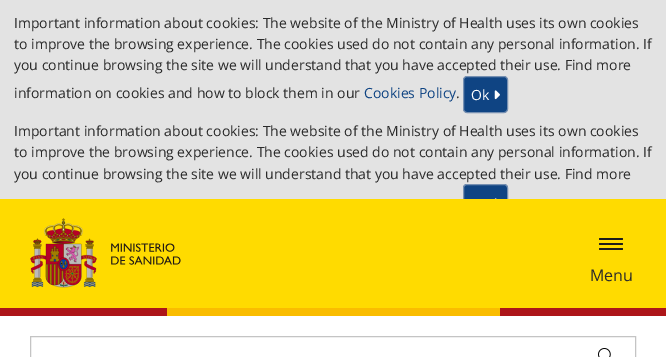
%!PS
<< /PageSize [666 357] >> setpagedevice
/roundrect { 5 dict begin { /r /h /w /y /x } { exch def } forall
  x r add y moveto x w add y 2 copy h add r arct x w add y h add x 1 index r arct
  x y h add x y r arct x y 2 copy exch w add exch r arct closepath end } def
/picture { 5 dict begin { /h /w /y /x /name } { exch def } forall
  gsave x y translate w h scale
  w h 8 [w 0 0 h 0 0] name (r) file false 3 colorimage grestore end } def
0 357 translate 1 -1 scale
4 setmiterlimit
1 setgray
0 0 666 357 rectfill
1 0.859 0 setrgbcolor
0 199 666 109 rectfill
0.89 setgray
0 0 666 199 rectfill
/OpenSans-Regular [14 0 0 -14 0 0] selectfont
0.165 setgray
14 28 moveto (Important information about cookies: The website of the Ministry of Health uses its own cookies) show
14 49 moveto (to improve the browsing experience. The cookies used do not contain any personal information. If) show
14 70 moveto (you continue browsing the site we will understand that you have accepted their use. Find more) show
14 98 moveto (information on cookies and how to block them in our) show
0.059 0.267 0.514 setrgbcolor
364 98 moveto (Cookies Policy) show
0.165 setgray
456 98 moveto (.) show
0.059 0.267 0.514 setrgbcolor
463.5 76.5 44 36 3.5 roundrect gsave fill grestore
0.463 0.565 0.698 setrgbcolor
stroke
1 setgray
471 100 moveto (Ok) show
(img1.rgb) 494 90 6 10 picture
0.165 setgray
14 136 moveto (Important information about cookies: The website of the Ministry of Health uses its own cookies) show
14 157 moveto (to improve the browsing experience. The cookies used do not contain any personal information. If) show
14 179 moveto (you continue browsing the site we will understand that you have accepted their use. Find more) show
0.059 0.267 0.514 setrgbcolor
newpath 467 184 moveto 504 184 lineto 506 184 508 186 508 188 curveto 508 199 lineto 463 199 lineto 463 188 lineto 463 186 465 184 467 184 curveto closepath fill
gsave
0 0 666 199 rectclip
0.463 0.565 0.698 setrgbcolor
463.5 184.5 44 37 3.5 roundrect stroke
grestore
(img2.rgb) 494 198 3 1 picture
(img3.rgb) 30 218 151 70 picture
0.114 0.114 0.106 setrgbcolor
599 238 24 2 1 roundrect fill
599 243 24 2 1 roundrect fill
599 248 24 2 1 roundrect fill
/OpenSans-Regular [16 0 0 -16 0 0] selectfont
0.165 setgray
590 281 moveto (Menu) show
0.678 0.082 0.098 setrgbcolor
0 308 167 8 rectfill
0.98 0.741 0 setrgbcolor
167 308 333 8 rectfill
0.678 0.082 0.098 setrgbcolor
500 308 166 8 rectfill
0.769 setgray
30.5 336.5 605 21 rectstroke
(img4.rgb) 598 348 13 9 picture
showpage
